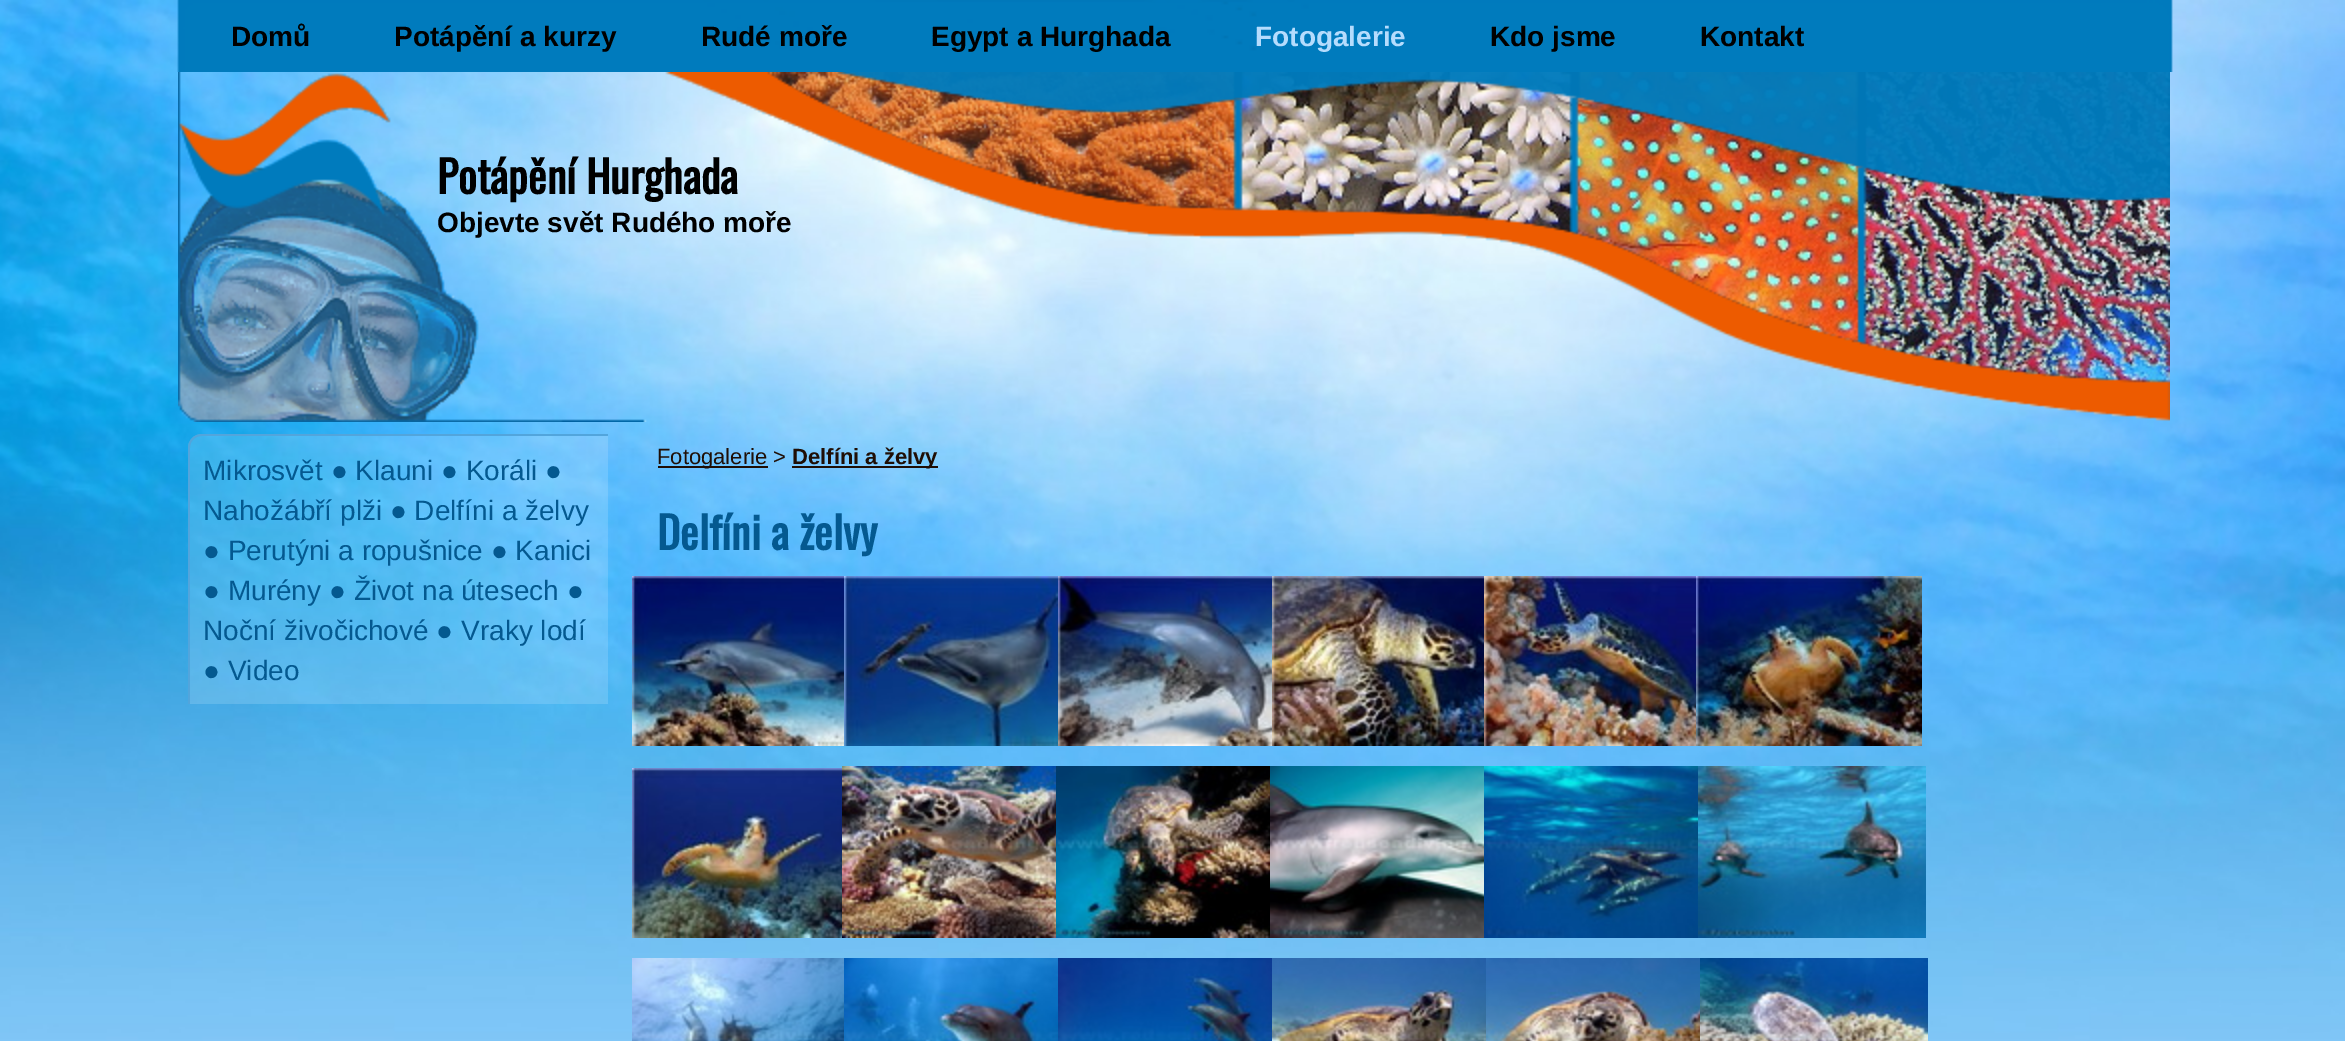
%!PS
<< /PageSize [2345 1041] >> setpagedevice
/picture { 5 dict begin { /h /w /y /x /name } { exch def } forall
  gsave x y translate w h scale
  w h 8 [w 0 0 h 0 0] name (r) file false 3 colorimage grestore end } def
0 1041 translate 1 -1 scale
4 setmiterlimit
1 setgray
0 0 2345 1041 rectfill
(img1.rgb) 0 0 2345 1041 picture
(img2.rgb) 177 0 1996 72 picture
/LiberationSans-Bold [28 0 0 -28 0 0] selectfont
0 setgray
231 46 moveto (Domů) show
394 46 moveto (Potápění a kurzy) show
701 46 moveto (Rudé moře) show
931 46 moveto (Egypt a Hurghada) show
0.71 0.863 0.992 setrgbcolor
1255 46 moveto (Fotogalerie) show
0 setgray
1490 46 moveto (Kdo jsme) show
1700 46 moveto (Kontakt) show
(img3.rgb) 178 72 1992 350 picture
/Oswald-Bold [44 0 0 -44 0 0] selectfont
437 194 moveto (Potápění Hurghada) show
/LiberationSans-Bold [28 0 0 -28 0 0] selectfont
437 232 moveto (Objevte svět Rudého moře) show
(img4.rgb) 188 434 420 270 picture
0.322 0.647 0.863 setrgbcolor
newpath 202 434 moveto 608 434 lineto 608 704 lineto 188 704 lineto 188 448 lineto 188 440 194 434 202 434 curveto closepath 202 436 moveto 608 436 lineto 608 704 lineto 190 704 lineto 190 448 lineto 190 441 195 436 202 436 curveto closepath eofill
/LiberationSans-Regular [28 0 0 -28 0 0] selectfont
0.016 0.349 0.565 setrgbcolor
203 480 moveto (Mikrosvět ● Klauni ● Koráli ●) show
203 520 moveto (Nahožábří plži ● Delfíni a želvy) show
203 560 moveto (● Perutýni a ropušnice ● Kanici) show
203 600 moveto (● Murény ● Život na útesech ●) show
203 640 moveto (Noční živočichové ● Vraky lodí) show
203 680 moveto (● Video) show
0.122 0.055 0.02 setrgbcolor
658 466 110 2 rectfill
/LiberationSans-Regular [22 0 0 -22 0 0] selectfont
657 464 moveto (Fotogalerie >) show
792 466 146 2 rectfill
/LiberationSans-Bold [22 0 0 -22 0 0] selectfont
792 464 moveto (Delfíni a želvy) show
/Oswald-Bold [44 0 0 -44 0 0] selectfont
0.016 0.349 0.565 setrgbcolor
657 550 moveto (Delfíni a želvy) show
(img5.rgb) 632 576 212 170 picture
(img6.rgb) 844 576 214 170 picture
(img7.rgb) 1058 576 214 170 picture
(img8.rgb) 1272 576 212 170 picture
(img9.rgb) 1484 576 212 170 picture
(img10.rgb) 1696 576 226 170 picture
(img11.rgb) 632 768 210 170 picture
(img12.rgb) 842 766 214 172 picture
(img13.rgb) 1056 766 214 172 picture
(img14.rgb) 1270 766 214 172 picture
(img15.rgb) 1484 766 214 172 picture
(img16.rgb) 1698 766 228 172 picture
(img17.rgb) 632 958 212 83 picture
(img18.rgb) 844 958 214 83 picture
(img19.rgb) 1058 958 214 83 picture
(img20.rgb) 1272 958 214 83 picture
(img21.rgb) 1486 958 214 83 picture
(img22.rgb) 1700 958 228 83 picture
showpage
